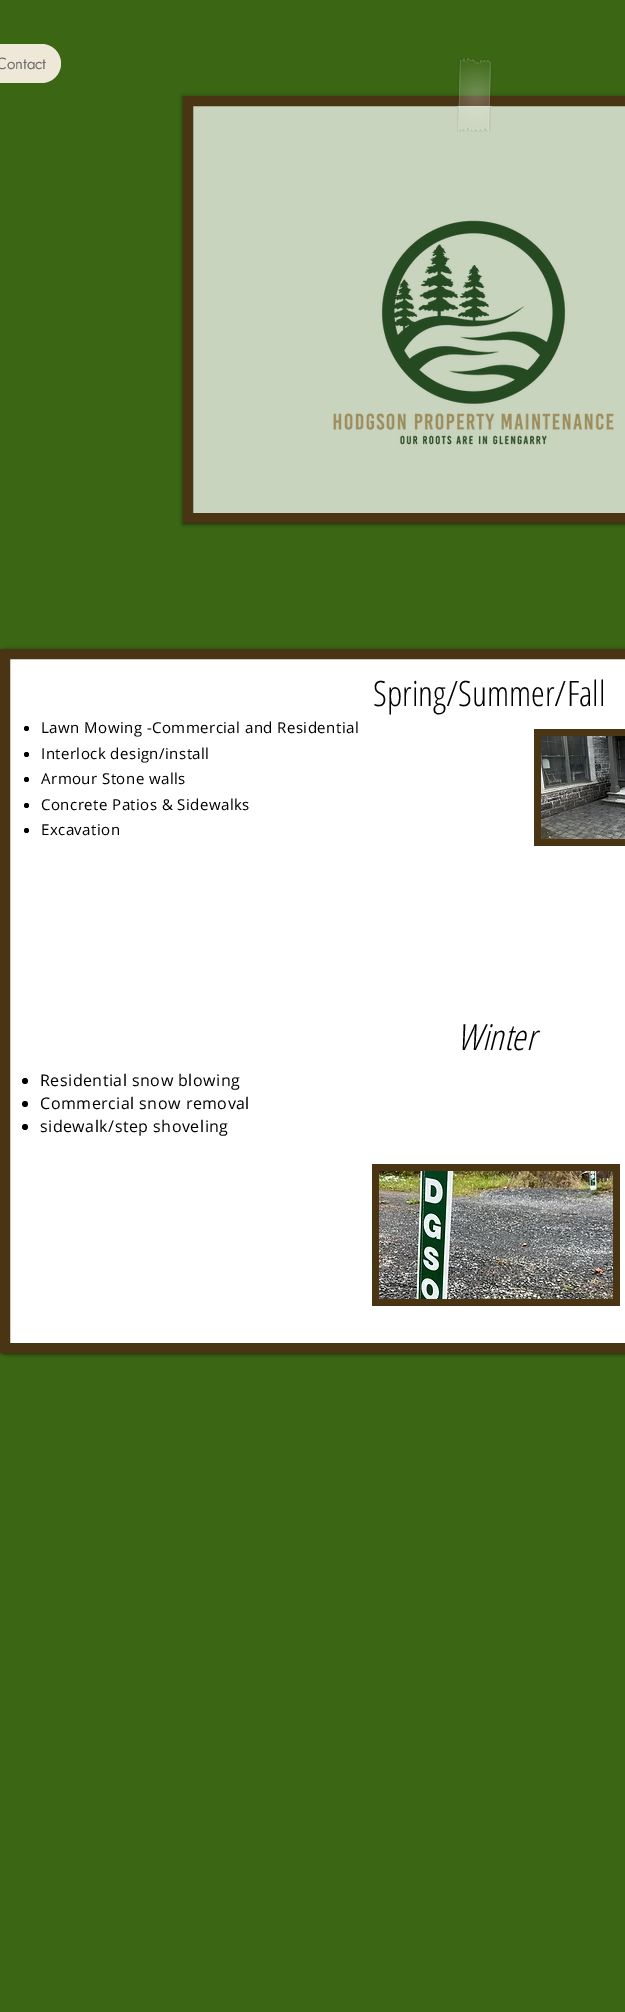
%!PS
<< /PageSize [625 2012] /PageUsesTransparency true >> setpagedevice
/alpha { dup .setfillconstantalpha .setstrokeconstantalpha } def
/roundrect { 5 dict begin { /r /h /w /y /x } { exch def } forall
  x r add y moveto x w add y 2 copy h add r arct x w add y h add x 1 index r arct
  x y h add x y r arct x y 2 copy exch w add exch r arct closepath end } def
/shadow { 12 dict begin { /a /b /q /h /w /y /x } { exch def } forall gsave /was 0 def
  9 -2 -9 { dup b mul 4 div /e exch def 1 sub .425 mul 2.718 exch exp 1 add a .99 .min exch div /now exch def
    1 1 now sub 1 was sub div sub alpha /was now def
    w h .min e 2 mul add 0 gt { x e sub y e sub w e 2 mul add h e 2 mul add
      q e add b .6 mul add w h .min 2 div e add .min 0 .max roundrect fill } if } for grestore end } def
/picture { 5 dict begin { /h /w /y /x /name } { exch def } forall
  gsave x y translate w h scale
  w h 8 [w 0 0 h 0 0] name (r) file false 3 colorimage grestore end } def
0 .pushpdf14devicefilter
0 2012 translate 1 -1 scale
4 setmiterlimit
0.231 0.4 0.078 setrgbcolor
0 0 625 2012 rectfill
0.933 0.91 0.847 setrgbcolor
-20 44 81 39 19.5 roundrect fill
/futura-Regular [15 0 0 -15 0 0] selectfont
0.412 setgray
-4 69 moveto (Contact) show
0 setgray
183 97 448 427 0 2 0.6 shadow
0.784 0.831 0.741 setrgbcolor
newpath 188 101 moveto 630 101 lineto 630 518 lineto 188 518 lineto closepath gsave fill grestore
0.286 0.204 0.078 setrgbcolor
10 setlinewidth
stroke
(img1.rgb) 457 58 35 74 picture
(img2.rgb) 333 220 281 225 picture
0 setgray
0 650 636 704 5 2 0.6 shadow
1 setgray
newpath 5 654 moveto 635 654 lineto 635 1348 lineto 5 1348 lineto closepath gsave fill grestore
0.286 0.204 0.078 setrgbcolor
stroke
/OpenSansCondensed-Light [35 0 0 -35 0 0] selectfont
0 setgray
373 706 moveto (Spring/Summer/Fall) show
newpath 26.5 728.5 2.5 0 360 arc closepath fill
/OpenSans-Regular [15 0 0 -15 0 0] selectfont
41 733 moveto 0.45 0 (Lawn Mowing -Commercial and Residential) ashow
newpath 26.5 754.5 2.5 0 360 arc closepath fill
41 759 moveto 0.45 0 (Interlock design/install) ashow
newpath 26.5 779.5 2.5 0 360 arc closepath fill
41 784 moveto 0.45 0 (Armour Stone walls) ashow
newpath 26.5 805.5 2.5 0 360 arc closepath fill
41 810 moveto 0.45 0 (Concrete Patios & Sidewalks) ashow
newpath 26.5 830.5 2.5 0 360 arc closepath fill
41 835 moveto 0.45 0 (Excavation) ashow
0.286 0.204 0.078 setrgbcolor
534 729 91 117 rectfill
(img3.rgb) 541 736 84 103 picture
/OpenSansCondensed-LightItalic [36 0 0 -36 0 0] selectfont
0 setgray
457 1050 moveto (Winter) show
newpath 25 1081 3 0 360 arc closepath fill
/OpenSans-Regular [16 0 0 -16 0 0] selectfont
40 1086 moveto 0.5 0 (Residential snow blowing) ashow
newpath 25 1104 3 0 360 arc closepath fill
40 1109 moveto 0.5 0 (Commercial snow removal) ashow
newpath 25 1127 3 0 360 arc closepath fill
40 1132 moveto 0.5 0 (sidewalk/step shoveling) ashow
0.286 0.204 0.078 setrgbcolor
372 1164 248 142 rectfill
(img4.rgb) 379 1171 234 128 picture
.poppdf14devicefilter showpage
